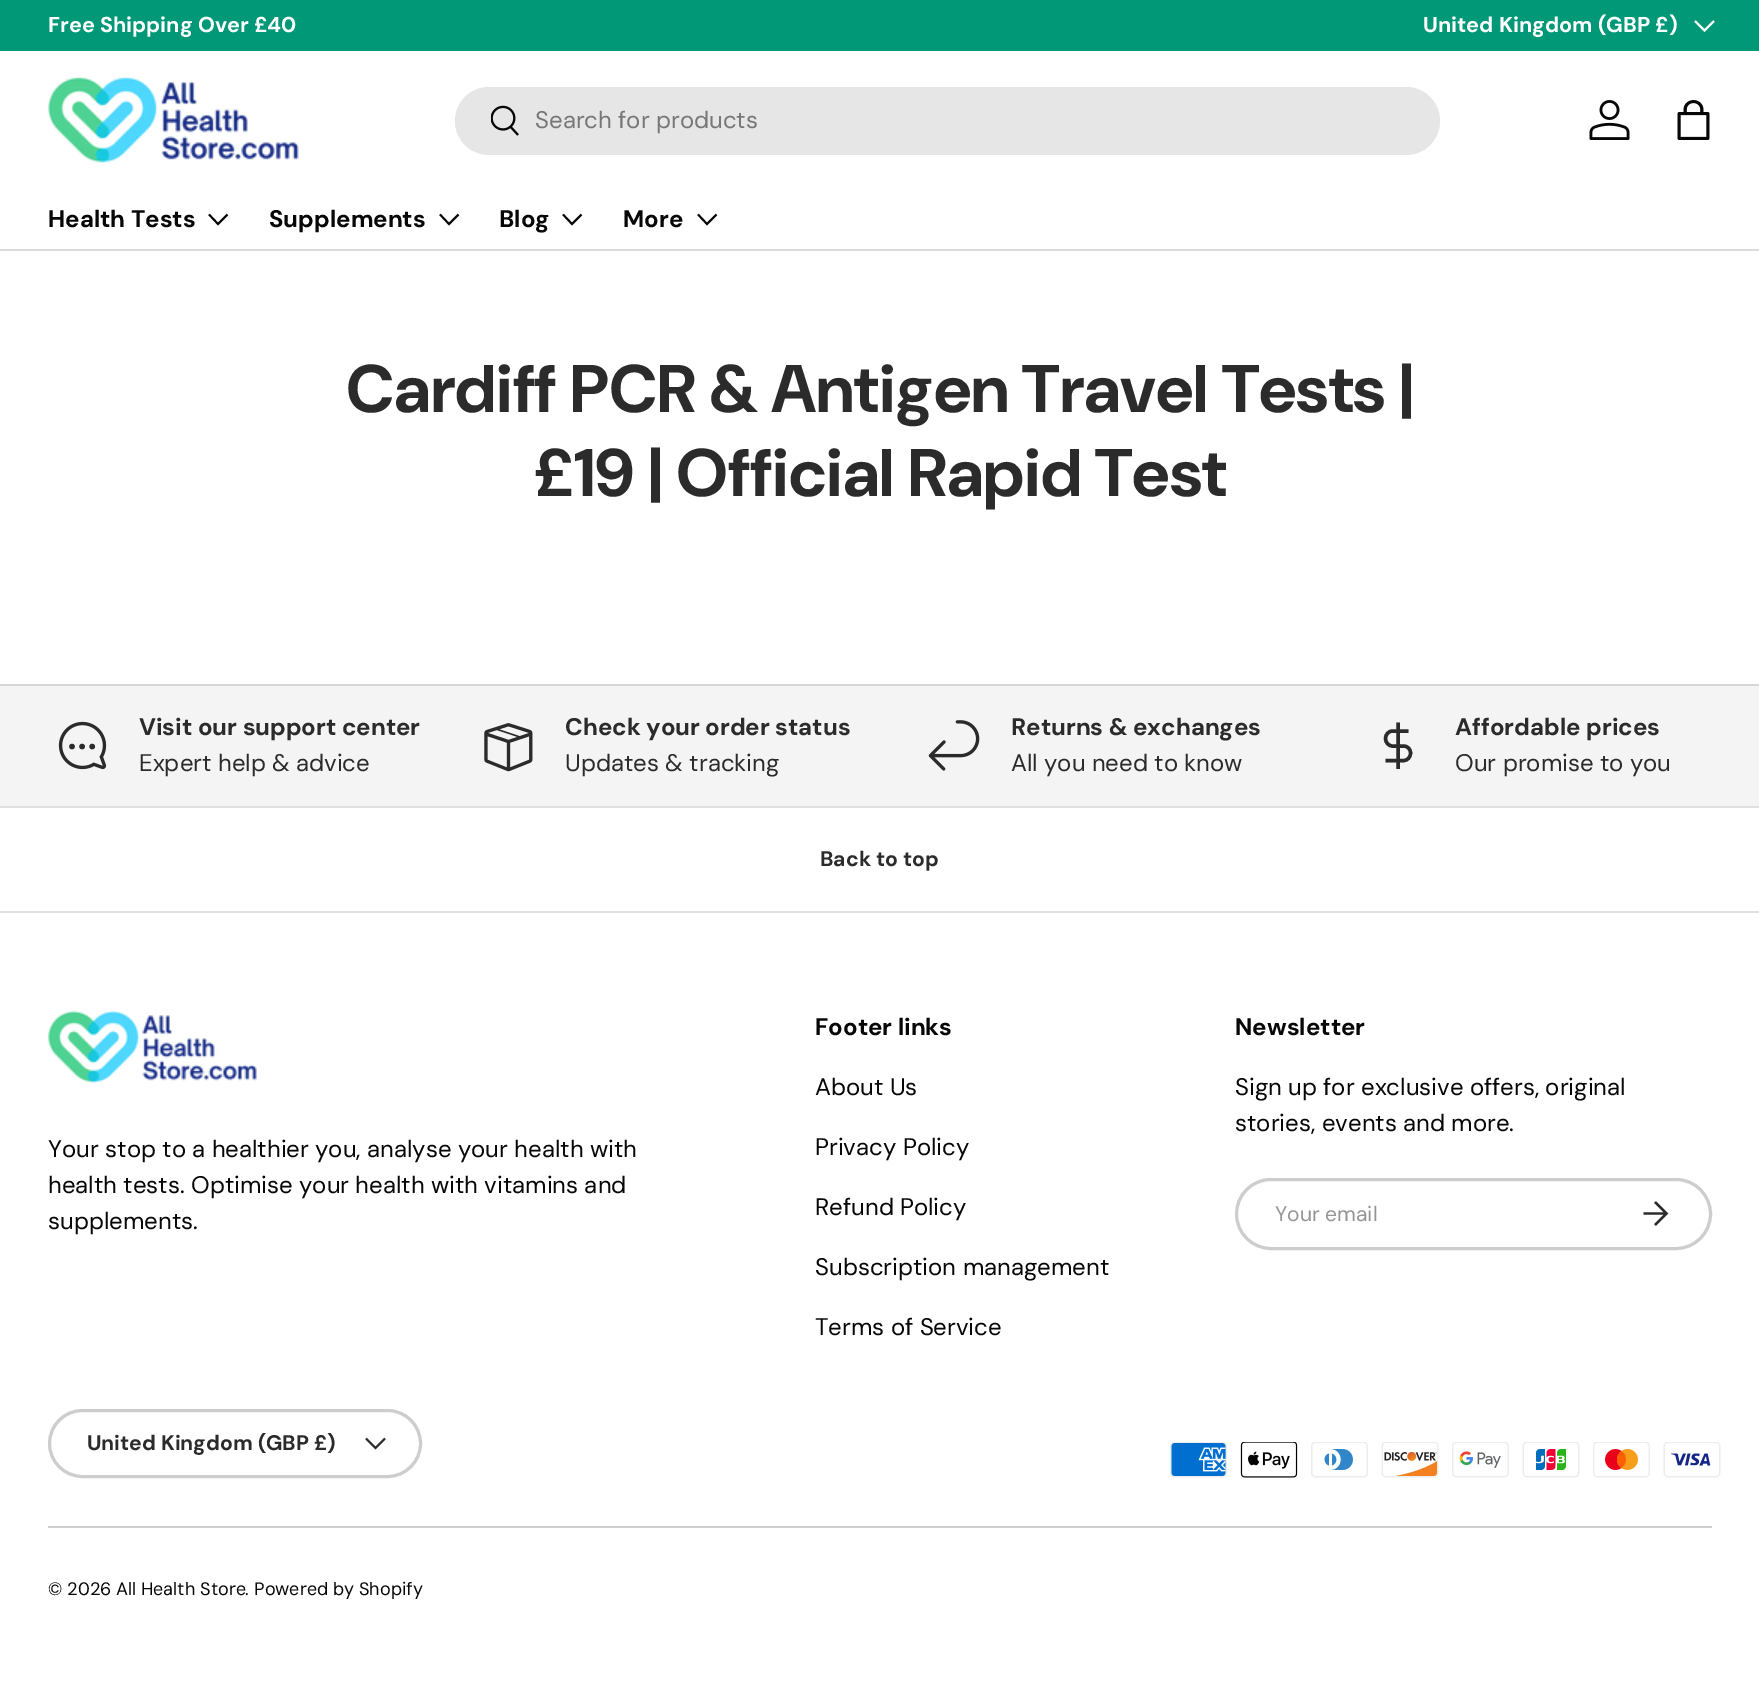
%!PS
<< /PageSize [1759 1706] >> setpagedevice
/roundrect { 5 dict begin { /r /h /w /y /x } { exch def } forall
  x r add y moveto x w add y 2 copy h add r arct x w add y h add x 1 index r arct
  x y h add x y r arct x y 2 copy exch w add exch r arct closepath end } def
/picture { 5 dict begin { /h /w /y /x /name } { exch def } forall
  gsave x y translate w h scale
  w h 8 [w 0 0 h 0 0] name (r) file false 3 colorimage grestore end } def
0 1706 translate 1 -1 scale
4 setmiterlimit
1 setgray
0 0 1759 1706 rectfill
0 0.596 0.467 setrgbcolor
0 0 1759 51 rectfill
/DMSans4-Bold [21.6 0 0 -21.6 0 0] selectfont
1 setgray
48 32 moveto (Free Shipping Over £40) show
1423 32 moveto (United Kingdom \(GBP £\)) show
1.9 setlinewidth
newpath 1714 21 moveto 1704.5 30.5 lineto 1695 21 lineto stroke
0.855 setgray
0 249 1759 2 rectfill
(img1.rgb) 48 76 251 87 picture
0.902 setgray
455 87 985 68 34 roundrect fill
(img2.rgb) 491 105 28 31 picture
/DMSans-Regular [24 0 0 -24 0 0] selectfont
0.467 setgray
535 128 moveto (Search for products) show
(img3.rgb) 1589 100 41 40 picture
(img4.rgb) 1677 100 33 40 picture
/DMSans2-Bold [24 0 0 -24 0 0] selectfont
0.027 setgray
48 227 moveto (Health Tests) show
newpath 227.5 214.5 moveto 218 224 lineto 209 214.5 lineto stroke
269 227 moveto (Supplements) show
newpath 458.5 214.5 moveto 449 224 lineto 440 214.5 lineto stroke
499 227 moveto (Blog) show
newpath 581.5 214.5 moveto 572 224 lineto 563 214.5 lineto stroke
623 227 moveto (More) show
newpath 716.5 214.5 moveto 707 224 lineto 698 214.5 lineto stroke
/DMSans-Bold [67.25 0 0 -67.25 0 0] selectfont
0.165 0.169 0.165 setrgbcolor
346 412 moveto (Cardiff PCR & Antigen Travel Tests |) show
534 496 moveto (£19 | Official Rapid Test) show
0.957 setgray
0 686 1759 120 rectfill
0.839 setgray
0 684 1759 2 rectfill
(img5.rgb) 58 721 49 49 picture
/DMSans2-Bold [24 0 0 -24 0 0] selectfont
0.165 0.169 0.165 setrgbcolor
139 735 moveto (Visit our support center) show
/DMSans-Regular [24 0 0 -24 0 0] selectfont
139 771 moveto (Expert help & advice) show
(img6.rgb) 484 723 49 49 picture
/DMSans2-Bold [24 0 0 -24 0 0] selectfont
565 735 moveto (Check your order status) show
/DMSans-Regular [24 0 0 -24 0 0] selectfont
565 771 moveto (Updates & tracking) show
(img7.rgb) 928 720 52 51 picture
/DMSans2-Bold [24 0 0 -24 0 0] selectfont
1011 735 moveto (Returns & exchanges) show
/DMSans-Regular [24 0 0 -24 0 0] selectfont
1011 771 moveto (All you need to know) show
3.4 setlinewidth
newpath 1398 722.5 moveto 1398 769 lineto 1408.5 731 moveto 1392.5 731 lineto 1388.5 731 1385.5 734.5 1385.5 738.5 curveto 1385.5 742.5 1388.5 746 1392.5 746 curveto 1403.5 746 lineto 1407.5 746 1410.5 749 1410.5 753 curveto 1410.5 757.5 1407.5 760.5 1403.5 760.5 curveto 1385.5 760.5 lineto stroke
/DMSans2-Bold [24 0 0 -24 0 0] selectfont
1455 735 moveto (Affordable prices) show
/DMSans-Regular [24 0 0 -24 0 0] selectfont
1455 771 moveto (Our promise to you) show
0.875 setgray
0 806 1759 2 rectfill
0 911 1759 2 rectfill
/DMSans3-Bold [21.1 0 0 -21.1 0 0] selectfont
0.165 0.169 0.165 setrgbcolor
820 866 moveto (Back to top) show
(img8.rgb) 48 1010 209 74 picture
/DMSans-Regular [24 0 0 -24 0 0] selectfont
0.027 setgray
48 1157 moveto (Your stop to a healthier you, analyse your health with) show
48 1193 moveto (health tests. Optimise your health with vitamins and) show
48 1229 moveto (supplements.) show
/DMSans2-Bold [24 0 0 -24 0 0] selectfont
815 1035 moveto (Footer links) show
/DMSans-Regular [24 0 0 -24 0 0] selectfont
815 1095 moveto (About Us) show
815 1155 moveto (Privacy Policy) show
815 1215 moveto (Refund Policy) show
815 1275 moveto (Subscription management) show
815 1335 moveto (Terms of Service) show
/DMSans2-Bold [24 0 0 -24 0 0] selectfont
1235 1035 moveto (Newsletter) show
/DMSans-Regular [24 0 0 -24 0 0] selectfont
1235 1095 moveto (Sign up for exclusive offers, original) show
1235 1131 moveto (stories, events and more.) show
0.804 setgray
3 setlinewidth
1236.5 1179.5 474 69 34.5 roundrect stroke
/DMSans2-Regular [21.1 0 0 -21.1 0 0] selectfont
0.584 setgray
1275 1221 moveto (Your email) show
0.165 0.169 0.165 setrgbcolor
2.2 setlinewidth
newpath 1643.5 1213.5 moveto 1665.5 1213.5 lineto 1655 1202 moveto 1666.5 1213.5 lineto 1655 1225 lineto stroke
0.804 setgray
3 setlinewidth
49.5 1410.5 371 66 33 roundrect stroke
/DMSans3-Bold [21.1 0 0 -21.1 0 0] selectfont
0.165 0.169 0.165 setrgbcolor
87 1450 moveto (United Kingdom \(GBP £\)) show
1.9 setlinewidth
newpath 385 1438.5 moveto 375.5 1448 lineto 366 1438.5 lineto stroke
(img9.rgb) 1170 1442 57 36 picture
(img10.rgb) 1240 1442 58 36 picture
(img11.rgb) 1311 1442 57 36 picture
(img12.rgb) 1381 1442 58 36 picture
(img13.rgb) 1452 1442 57 36 picture
(img14.rgb) 1522 1442 58 36 picture
(img15.rgb) 1593 1442 57 36 picture
(img16.rgb) 1663 1442 58 36 picture
0.804 setgray
48 1526 1664 2 rectfill
/DMSans3-Regular [18 0 0 -18 0 0] selectfont
0.027 setgray
48 1595 moveto (© 2026) show
116 1595 moveto (All Health Store) show
245 1595 moveto (.) show
254 1595 moveto (Powered by Shopify) show
showpage
